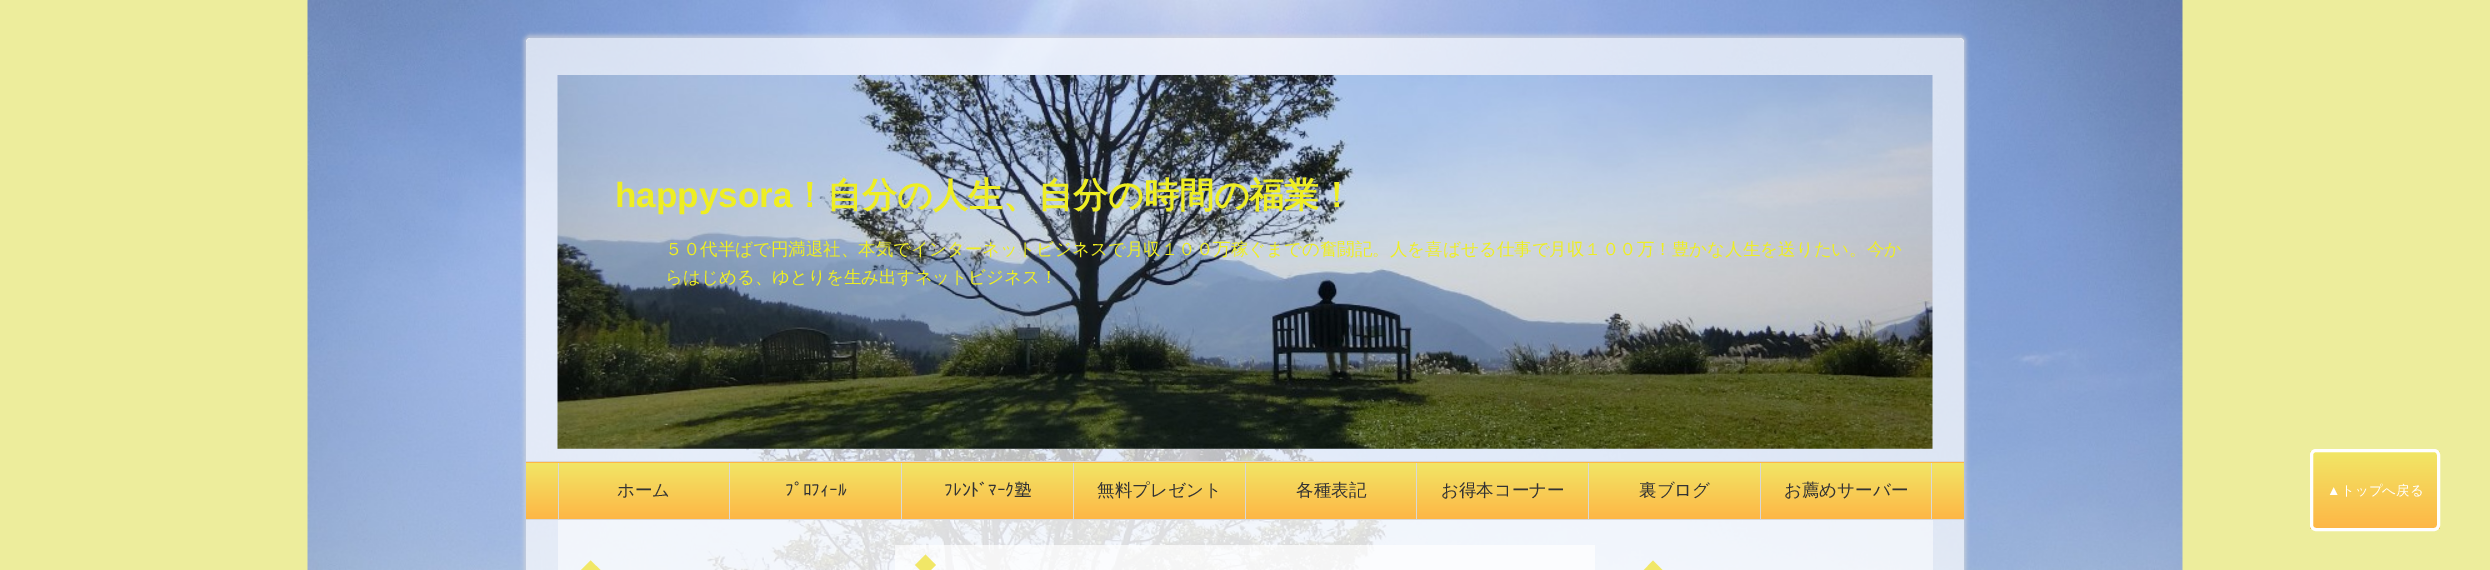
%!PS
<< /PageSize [2490 570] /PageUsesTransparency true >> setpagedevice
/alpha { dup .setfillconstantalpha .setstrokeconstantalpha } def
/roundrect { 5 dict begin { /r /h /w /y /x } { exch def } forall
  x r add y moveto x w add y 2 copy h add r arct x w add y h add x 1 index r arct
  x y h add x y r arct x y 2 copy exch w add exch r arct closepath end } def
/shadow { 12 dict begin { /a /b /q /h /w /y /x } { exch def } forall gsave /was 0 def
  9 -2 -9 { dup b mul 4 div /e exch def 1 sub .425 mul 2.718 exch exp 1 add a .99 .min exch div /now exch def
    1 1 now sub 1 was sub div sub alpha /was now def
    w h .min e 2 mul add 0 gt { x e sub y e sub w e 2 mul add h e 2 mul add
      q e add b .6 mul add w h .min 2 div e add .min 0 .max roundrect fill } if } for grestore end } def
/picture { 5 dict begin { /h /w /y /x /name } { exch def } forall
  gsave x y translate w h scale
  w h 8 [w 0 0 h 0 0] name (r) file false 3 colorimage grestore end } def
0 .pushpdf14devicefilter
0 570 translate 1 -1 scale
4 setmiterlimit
0.929 0.929 0.612 setrgbcolor
0 0 2490 570 rectfill
(img1.rgb) 307 0 1876 570 picture
gsave
newpath 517 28 moveto 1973 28 lineto 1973 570 lineto 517 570 lineto closepath 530 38 moveto 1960 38 lineto 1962 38 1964 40 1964 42 curveto 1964 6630 lineto 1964 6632 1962 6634 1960 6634 curveto 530 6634 lineto 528 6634 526 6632 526 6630 curveto 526 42 lineto 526 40 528 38 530 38 curveto closepath eoclip newpath
0.847 setgray
524 35 1442 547 6 2 0.65 shadow
grestore
0.7 alpha
1 setgray
526 38 1438 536 4 roundrect fill
1 alpha
(img2.rgb) 557 75 1376 374 picture
/LiberationSans-Bold [35 0 0 -35 0 0] selectfont
0.933 0.933 0.133 setrgbcolor
615 207 moveto (happysora) show
/WenQuanYiZenHei-Bold [35 0 0 -35 0 0] selectfont
792 207 moveto (！自分の人生、自分の時間の福業！) show
/WenQuanYiZenHei-Medium [17.5 0 0 -17.5 0 0] selectfont
665 255 moveto (５０代半ばで円満退社、本気でインターネットビジネスで月収１００万稼ぐまでの奮闘記。人を喜ばせる仕事で月収１００万！豊かな人生を送りたい。今か) show
665 283 moveto (らはじめる、ゆとりを生み出すネットビジネス！) show
gsave newpath 526 462 moveto 1964 462 lineto 1964 463 lineto 526 463 lineto closepath clip newpath
<< /ShadingType 2 /ColorSpace /DeviceRGB /Coords [1245 406 1245 463] /Extend [true true] /Function << /FunctionType 2 /Domain [0 1] /C0 [0.945 0.906 0.404] /C1 [0.996 0.714 0.271] /N 1 >> >> shfill grestore
gsave newpath 526 463 moveto 1964 463 lineto 1964 519 lineto 526 519 lineto closepath clip newpath
<< /ShadingType 2 /ColorSpace /DeviceRGB /Coords [1245 462 1245 519] /Extend [true true] /Function << /FunctionType 2 /Domain [0 1] /C0 [0.945 0.906 0.404] /C1 [0.996 0.714 0.271] /N 1 >> >> shfill grestore
0.847 setgray
526 461 1438 1 rectfill
526 519 1438 1 rectfill
1931 463 1 56 rectfill
558 463 1 56 rectfill
0.2 setgray
617 496 moveto (ホーム) show
0.847 setgray
729 463 1 56 rectfill
/IPAPGothic-Regular [17.5 0 0 -17.5 0 0] selectfont
0.2 setgray
785 496 moveto (ﾌﾟﾛﾌｨｰﾙ) show
0.847 setgray
901 463 1 56 rectfill
0.2 setgray
944 496 moveto (ﾌﾚﾝﾄﾞﾏｰｸ塾) show
0.847 setgray
1073 463 1 56 rectfill
/WenQuanYiZenHei-Medium [17.5 0 0 -17.5 0 0] selectfont
0.2 setgray
1097 496 moveto (無料プレゼント) show
0.847 setgray
1245 463 1 56 rectfill
0.2 setgray
1296 496 moveto (各種表記) show
0.847 setgray
1416 463 1 56 rectfill
0.2 setgray
1441 496 moveto (お得本コーナー) show
0.847 setgray
1588 463 1 56 rectfill
0.2 setgray
1639 496 moveto (裏ブログ) show
0.847 setgray
1760 463 1 56 rectfill
0.2 setgray
1784 496 moveto (お薦めサーバー) show
gsave
2310 449 130 82 6 roundrect clip newpath
gsave newpath 2310 451 moveto 2440 451 lineto 2440 529 lineto 2310 529 lineto closepath clip newpath
<< /ShadingType 2 /ColorSpace /DeviceRGB /Coords [2375 451 2375 529] /Extend [true true] /Function << /FunctionType 2 /Domain [0 1] /C0 [0.945 0.906 0.404] /C1 [0.996 0.714 0.271] /N 1 >> >> shfill grestore
grestore
1 setgray
3 setlinewidth
2311.5 450.5 127 79 4.5 roundrect stroke
/LiberationSans-Regular [13.5 0 0 -13.5 0 0] selectfont
2327 495 moveto (▲) show
/WenQuanYiZenHei-Medium [13.5 0 0 -13.5 0 0] selectfont
2341 495 moveto (トップへ戻る) show
0.5 alpha
558 520 1375 50 rectfill
0.7 alpha
895 545 700 25 rectfill
1 alpha
0.945 0.906 0.404 setrgbcolor
newpath 925.5 554.5 moveto 936 565 lineto 925.5 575.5 lineto 915 565 lineto closepath fill
newpath 590.5 560.5 moveto 601.5 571 lineto 590.5 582 lineto 580 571 lineto closepath fill
newpath 1653 560.5 moveto 1664 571.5 lineto 1653 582 lineto 1642.5 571.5 lineto closepath fill
.poppdf14devicefilter showpage
